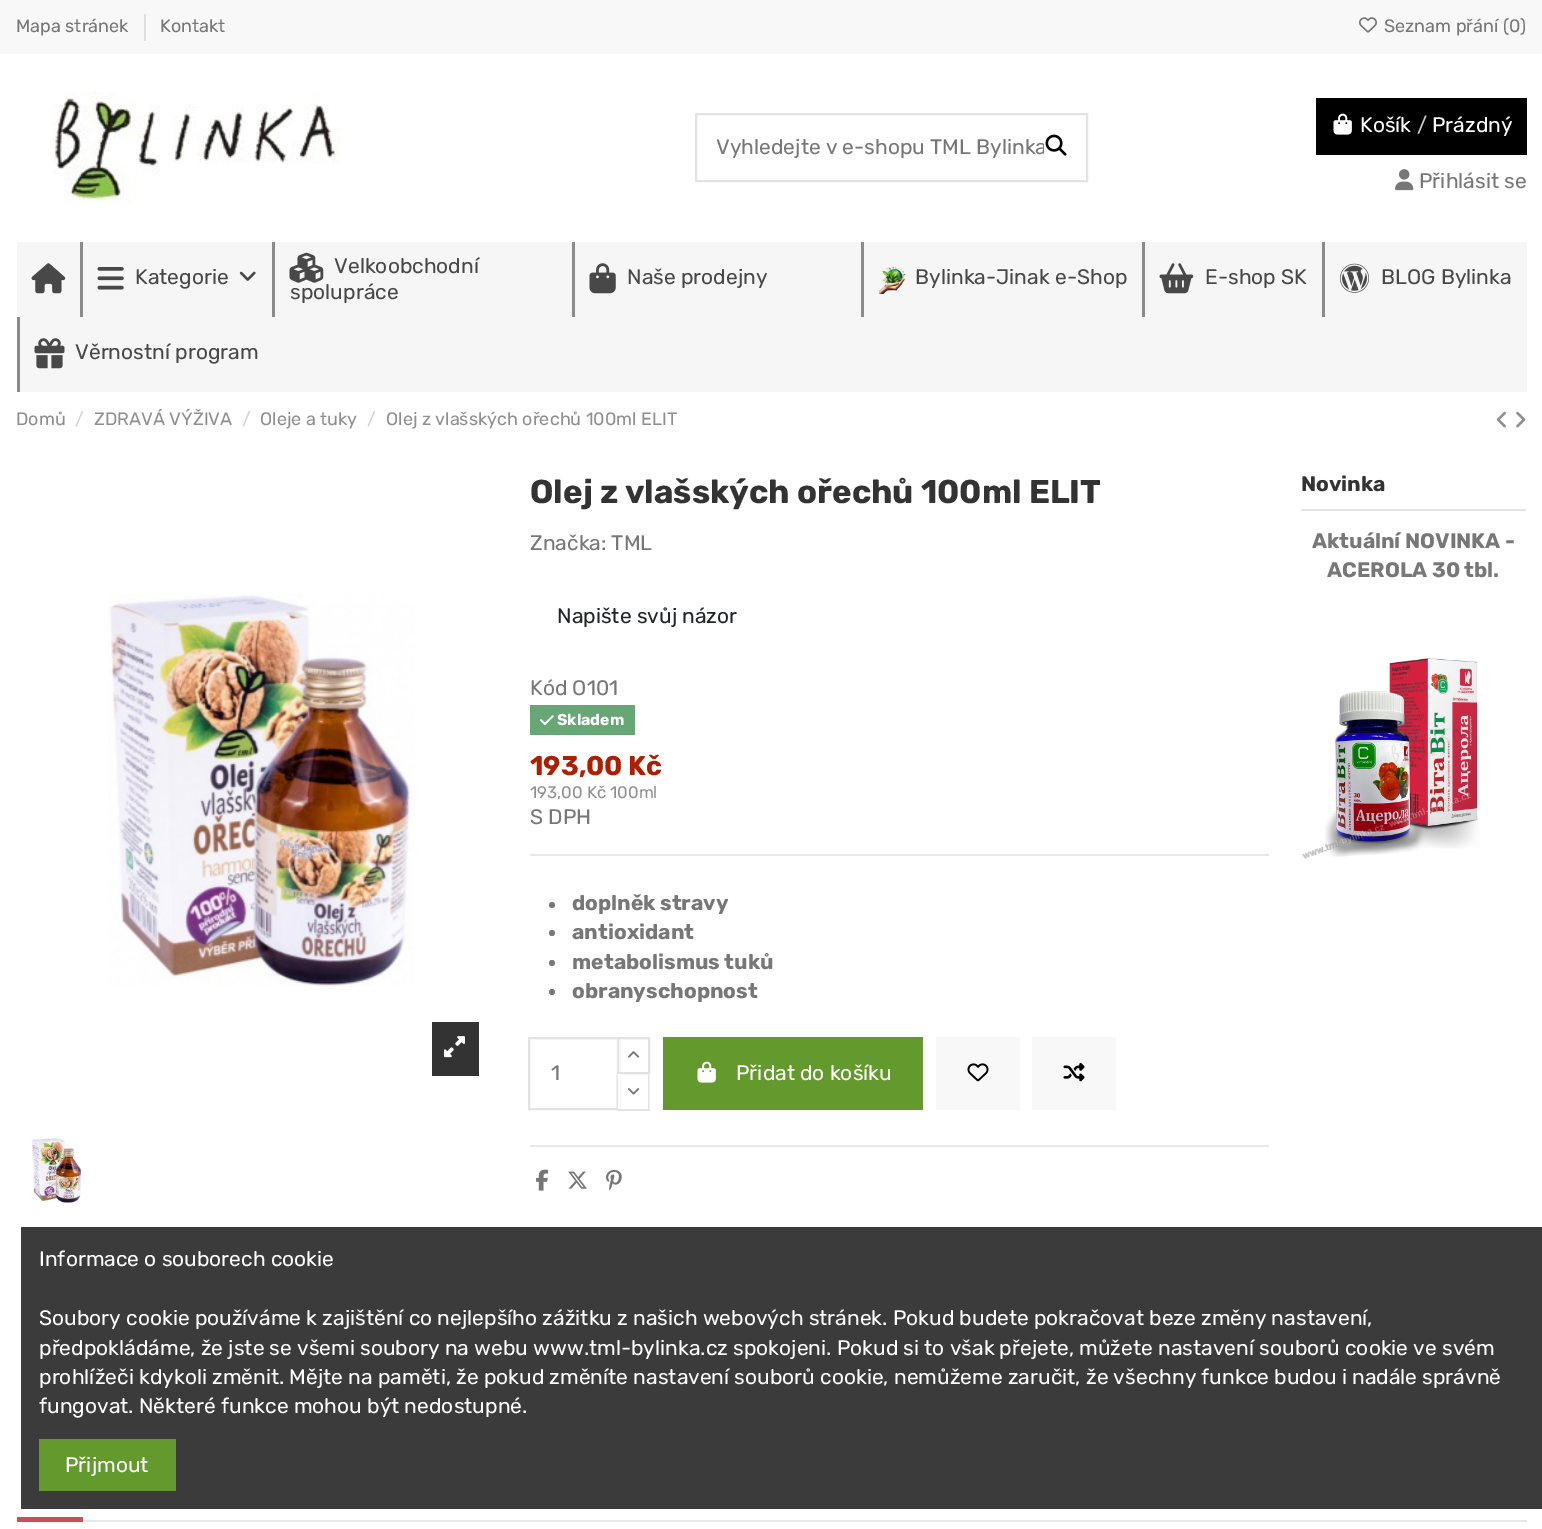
%!PS
<< /PageSize [1542 1529] >> setpagedevice
/picture { 5 dict begin { /h /w /y /x /name } { exch def } forall
  gsave x y translate w h scale
  w h 8 [w 0 0 h 0 0] name (r) file false 3 colorimage grestore end } def
0 1529 translate 1 -1 scale
4 setmiterlimit
1 setgray
0 0 1542 1529 rectfill
0.973 setgray
0 0 1542 54 rectfill
/Rubik-Regular [18 0 0 -18 0 0] selectfont
0.467 setgray
16 32 moveto (Mapa stránek) show
0.871 setgray
144 14 2 27 rectfill
0.467 setgray
160 32 moveto (Kontakt) show
(img1.rgb) 1359 17 18 16 picture
1384 32 moveto (Seznam přání \(0\)) show
(img2.rgb) 52 91 289 113 picture
0.89 setgray
2 setlinewidth
696 114 391 67 rectstroke
gsave
717 135 327 26 rectclip
/Rubik-Regular [21 0 0 -21 0 0] selectfont
0.467 setgray
716 154 moveto (Vyhledejte v e-shopu TML Bylinka) show
grestore
(img3.rgb) 1045 134 22 22 picture
0 setgray
1316 98 211 57 rectfill
(img4.rgb) 1333 113 19 22 picture
/Rubik-Regular [21 0 0 -21 0 0] selectfont
1 setgray
1360 132 moveto (Košík) show
0.8 setgray
1417 132 moveto (/) show
1 setgray
1432 132 moveto (Prázdný) show
(img5.rgb) 1395 169 19 22 picture
0.467 setgray
1419 188 moveto (Přihlásit se) show
0.965 setgray
17 242 1510 150 rectfill
(img6.rgb) 31 263 35 31 picture
0.545 setgray
80 242 3 75 rectfill
(img7.rgb) 97 267 27 23 picture
0.282 setgray
135 284 moveto (Kategorie) show
(img8.rgb) 239 271 17 10 picture
0.545 setgray
272 242 3 75 rectfill
(img9.rgb) 289 252 35 31 picture
0.282 setgray
334 273 moveto (Velkoobchodní) show
290 299 moveto (spolupráce) show
0.545 setgray
572 242 3 75 rectfill
(img10.rgb) 589 263 27 31 picture
0.282 setgray
627 284 moveto (Naše prodejny) show
0.545 setgray
861 242 3 75 rectfill
(img11.rgb) 879 266 27 28 picture
0.282 setgray
915 284 moveto (Bylinka-Jinak e-Shop) show
0.545 setgray
1142 242 3 75 rectfill
(img12.rgb) 1159 263 35 31 picture
0.282 setgray
1205 284 moveto (E-shop SK) show
0.545 setgray
1322 242 3 75 rectfill
(img13.rgb) 1340 263 29 30 picture
0.282 setgray
1381 284 moveto (BLOG Bylinka) show
0.545 setgray
17 317 3 75 rectfill
(img14.rgb) 34 338 31 31 picture
0.282 setgray
75 359 moveto (Věrnostní program) show
/Rubik-Regular [18 0 0 -18 0 0] selectfont
0.561 setgray
16 425 moveto (Domů) show
0.824 setgray
75 425 moveto (/) show
0.561 setgray
94 425 moveto (ZDRAVÁ VÝŽIVA) show
0.824 setgray
242 425 moveto (/) show
0.561 setgray
260 425 moveto (Oleje a tuky) show
0.824 setgray
367 425 moveto (/) show
0.561 setgray
386 425 moveto (Olej z vlašských ořechů 100ml ELIT) show
(img15.rgb) 1496 411 10 17 picture
(img16.rgb) 1516 411 10 17 picture
(img17.rgb) 108 594 307 393 picture
0.2 setgray
432 1022 47 54 rectfill
(img18.rgb) 444 1036 21 22 picture
(img19.rgb) 32 1138 49 65 picture
0.906 setgray
530 854 739 2 rectfill
/Rubik-Bold [33 0 0 -33 0 0] selectfont
0.2 setgray
530 503 moveto (Olej z vlašských ořechů 100ml ELIT) show
/Rubik-Regular [21 0 0 -21 0 0] selectfont
0.467 setgray
530 550 moveto (Značka: TML) show
0.129 0.145 0.161 setrgbcolor
557 623 moveto (Napište svůj názor) show
0.467 setgray
530 695 moveto (Kód O101) show
0.404 0.651 0.459 setrgbcolor
530 705 105 30 rectfill
(img20.rgb) 540 715 14 10 picture
/Rubik-Bold [15.75 0 0 -15.75 0 0] selectfont
1 setgray
557 725 moveto (Skladem) show
/Rubik-Bold [27 0 0 -27 0 0] selectfont
0.678 0.122 0 setrgbcolor
530 775 moveto (193,00 Kč) show
/Rubik-Regular [16.75 0 0 -16.75 0 0] selectfont
0.561 setgray
530 798 moveto (193,00 Kč 100ml) show
/Rubik-Regular [21 0 0 -21 0 0] selectfont
0.467 setgray
530 824 moveto (S DPH) show
newpath 552 905 3 0 360 arc closepath fill
/Rubik-Bold [21 0 0 -21 0 0] selectfont
572 910 moveto (doplněk stravy) show
newpath 552 933 3 0 360 arc closepath fill
572 939 moveto (antioxidant) show
newpath 552 963 3 0 360 arc closepath fill
572 969 moveto (metabolismus tuků) show
newpath 552 992 3 0 360 arc closepath fill
572 998 moveto (obranyschopnost) show
0.89 setgray
529 1038 90 71 rectstroke
/Rubik-Regular [21 0 0 -21 0 0] selectfont
0.467 setgray
551 1080 moveto (1) show
1 setgray
619 1039 1 33 rectfill
0.89 setgray
618 1038 31 35 rectstroke
(img21.rgb) 628 1051 12 7 picture
1 setgray
617 1074 3 35 rectfill
0.89 setgray
newpath 649.5 1074 moveto 649.5 1110 lineto 648 1108.5 lineto 648 1075.5 lineto closepath fill
617 1109 33 2 rectfill
newpath 616.5 1110 moveto 616.5 1074 lineto 618 1075.5 lineto 618 1108.5 lineto closepath fill
(img22.rgb) 628 1088 12 7 picture
0.388 0.6 0.176 setrgbcolor
663 1037 260 73 rectfill
(img23.rgb) 697 1061 19 22 picture
1 setgray
736 1080 moveto (Přidat do košíku) show
0.973 setgray
936 1037 84 73 rectfill
(img24.rgb) 967 1063 22 19 picture
1032 1037 84 73 rectfill
(img25.rgb) 1063 1063 22 19 picture
0.906 setgray
530 1145 739 2 rectfill
(img26.rgb) 536 1169 13 22 picture
(img27.rgb) 568 1171 19 18 picture
(img28.rgb) 606 1169 16 22 picture
0.89 setgray
1301 509 225 2 rectfill
/Rubik-Bold [21 0 0 -21 0 0] selectfont
0.2 setgray
1301 491 moveto (Novinka) show
0.467 setgray
1312 548 moveto (Aktuální NOVINKA -) show
1327 577 moveto (ACEROLA 30 tbl.) show
(img29.rgb) 1302 658 178 201 picture
0.906 setgray
83 1520 1444 2 rectfill
0.792 0.314 0.345 setrgbcolor
17 1517 66 5 rectfill
0.231 setgray
21 1227 1521 282 rectfill
/Rubik-Regular [21 0 0 -21 0 0] selectfont
1 setgray
39 1266 moveto (Informace o souborech cookie) show
39 1325 moveto (Soubory cookie používáme k zajištění co nejlepšího zážitku z našich webových stránek. Pokud budete pokračovat beze změny nastavení,) show
39 1355 moveto (předpokládáme, že jste se všemi soubory na webu www.tml-bylinka.cz spokojeni. Pokud si to však přejete, můžete nastavení souborů cookie ve svém) show
39 1384 moveto (prohlížeči kdykoli změnit. Mějte na paměti, že pokud změníte nastavení souborů cookie, nemůžeme zaručit, že všechny funkce budou i nadále správně) show
39 1413 moveto (fungovat. Některé funkce mohou být nedostupné.) show
0.388 0.6 0.176 setrgbcolor
39 1439 137 52 rectfill
1 setgray
65 1472 moveto (Přijmout) show
showpage
